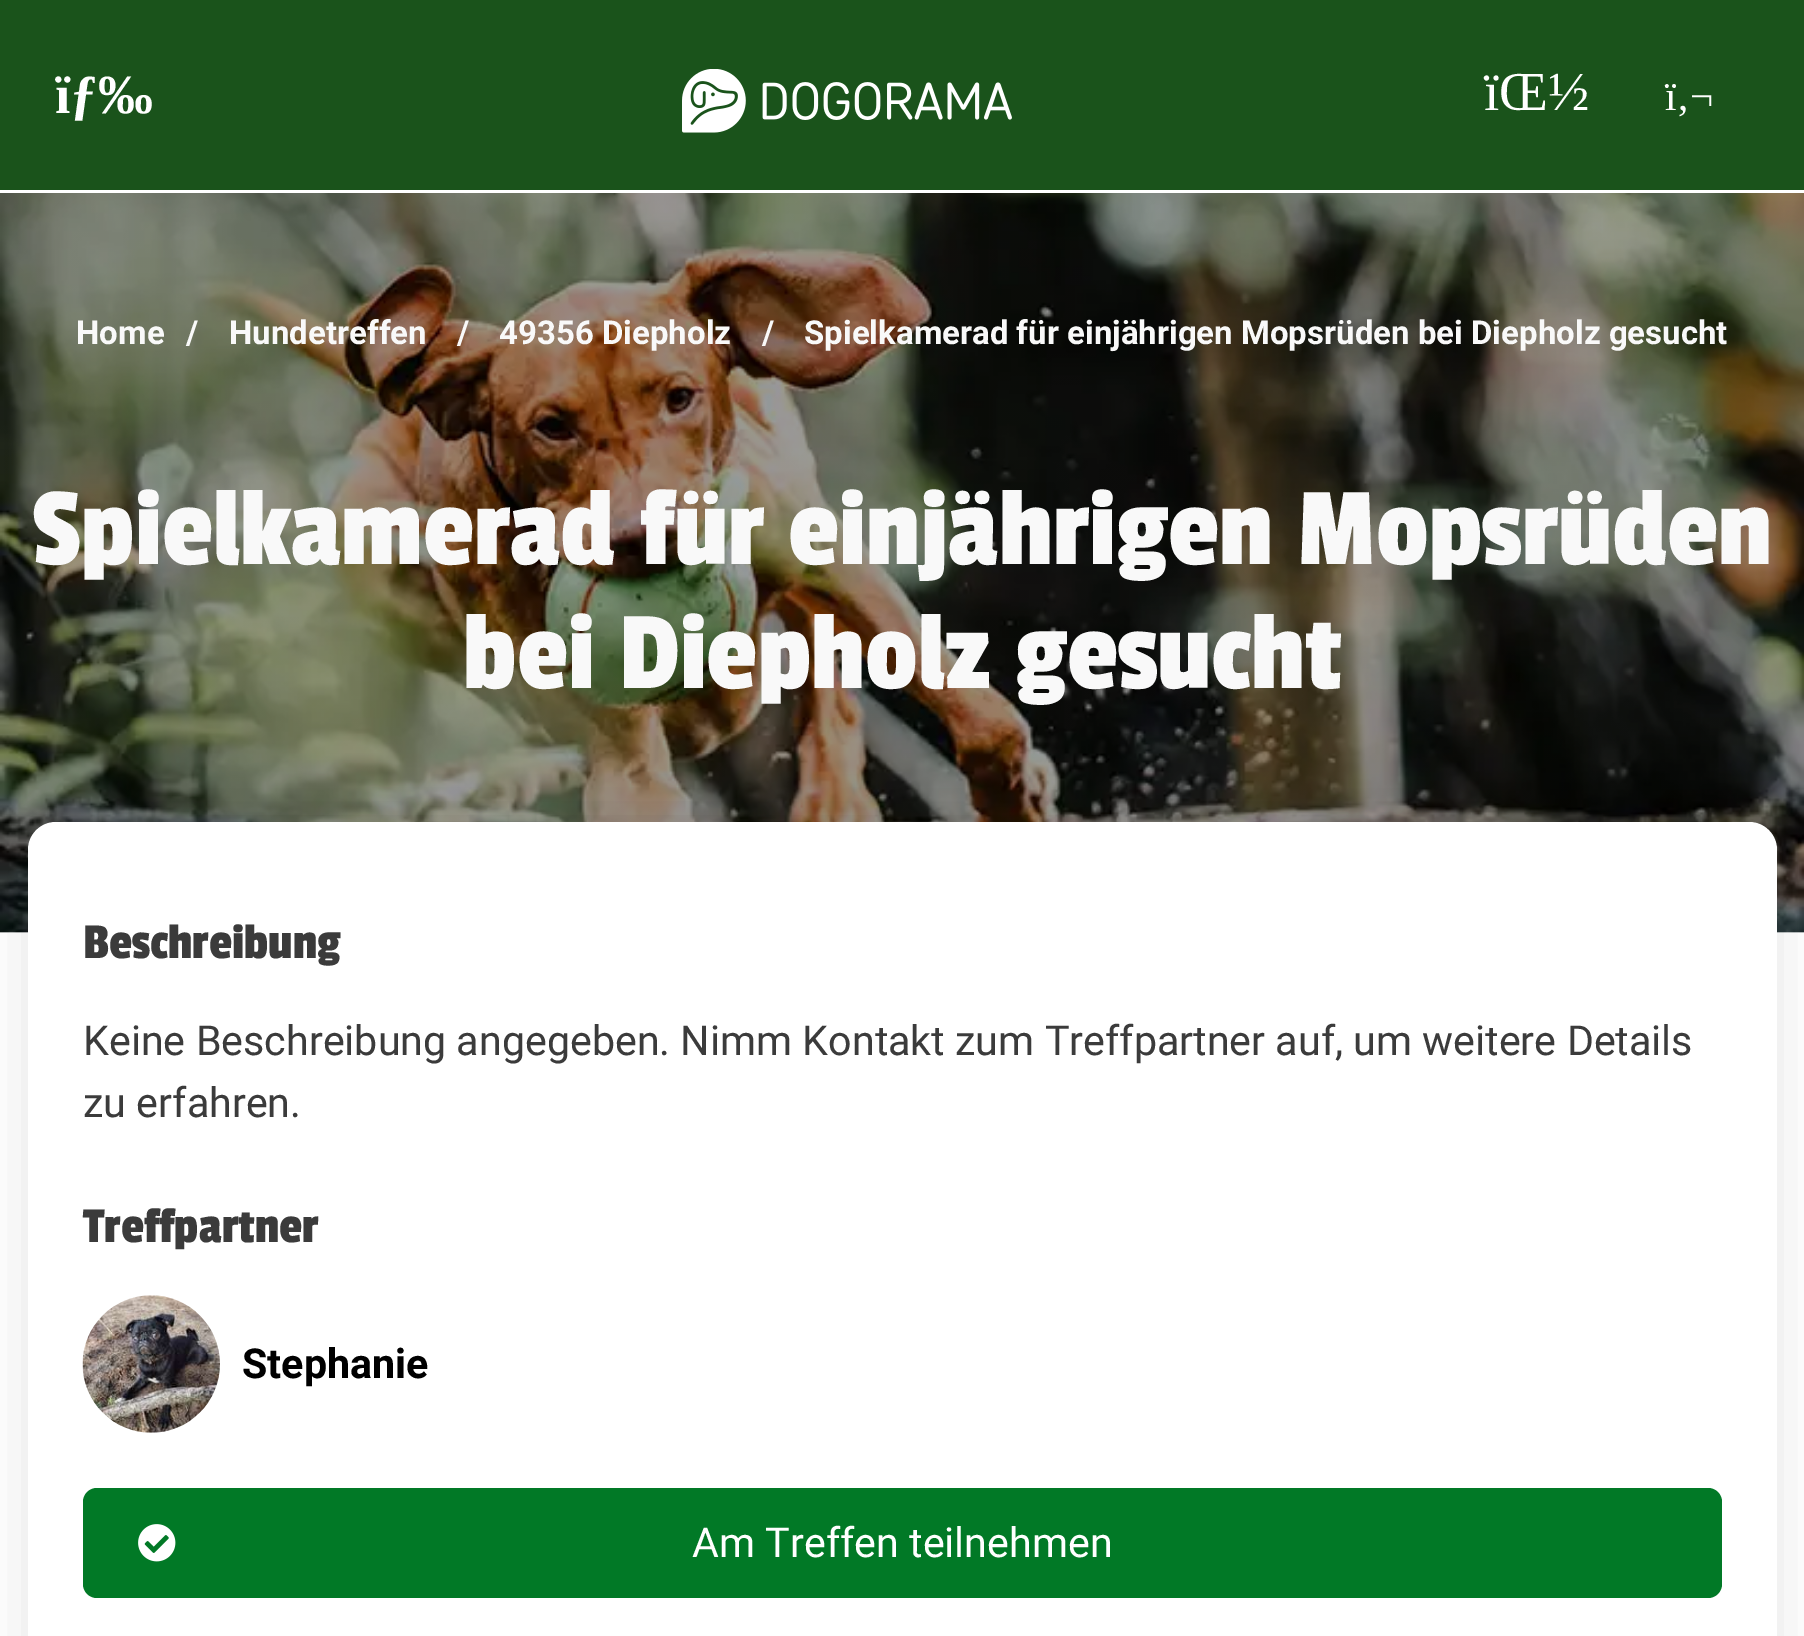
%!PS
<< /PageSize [1804 1636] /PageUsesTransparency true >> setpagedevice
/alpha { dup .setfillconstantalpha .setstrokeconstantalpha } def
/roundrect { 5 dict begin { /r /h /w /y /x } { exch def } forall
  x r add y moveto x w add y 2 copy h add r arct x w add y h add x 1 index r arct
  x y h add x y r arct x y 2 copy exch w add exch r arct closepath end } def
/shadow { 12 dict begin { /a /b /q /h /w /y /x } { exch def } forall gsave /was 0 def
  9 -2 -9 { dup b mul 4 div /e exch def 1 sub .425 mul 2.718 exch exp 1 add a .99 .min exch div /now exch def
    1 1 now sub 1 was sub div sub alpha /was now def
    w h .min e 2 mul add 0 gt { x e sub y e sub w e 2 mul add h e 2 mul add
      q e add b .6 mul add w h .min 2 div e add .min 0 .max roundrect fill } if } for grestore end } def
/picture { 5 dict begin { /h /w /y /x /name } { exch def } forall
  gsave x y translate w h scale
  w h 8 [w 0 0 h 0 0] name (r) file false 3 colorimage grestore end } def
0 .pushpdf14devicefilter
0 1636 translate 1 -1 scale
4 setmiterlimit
1 setgray
0 0 1804 1636 rectfill
0.102 0.325 0.106 setrgbcolor
0 0 1804 190 rectfill
/LiberationSerif-Bold [55 0 0 -55 0 0] selectfont
1 setgray
55 113 moveto (ïƒ‰) show
(img1.rgb) 682 69 330 64 picture
/LiberationSerif-Regular [55 0 0 -55 0 0] selectfont
1484 110 moveto (ïŒ½) show
/LiberationSerif-Regular [41.25 0 0 -41.25 0 0] selectfont
1665 110 moveto (ï‚¬) show
(img2.rgb) 0 193 1804 740 picture
/Roboto-Bold [33 0 0 -33 0 0] selectfont
0.976 setgray
76 344 moveto (Home) show
186 344 moveto (/) show
229 344 moveto (Hundetreffen) show
457 344 moveto (/) show
499 344 moveto (49356 Diepholz) show
762 344 moveto (/) show
804 344 moveto (Spielkamerad für einjährigen Mopsrüden bei Diepholz gesucht) show
/PassionOne-Regular [115.5 0 0 -115.5 0 0] selectfont
32 564 moveto (Spielkamerad für einjährigen Mopsrüden) show
463 688 moveto (bei Diepholz gesucht) show
0 setgray
28 822 1749 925 28 27.5 0.1 shadow
1 setgray
28 822 1749 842 28 roundrect fill
/PassionOne-Regular [52.25 0 0 -52.25 0 0] selectfont
0.231 setgray
83 958 moveto (Beschreibung) show
/Roboto-Regular [41.25 0 0 -41.25 0 0] selectfont
83 1055 moveto (Keine Beschreibung angegeben. Nimm Kontakt zum Treffpartner auf, um weitere Details) show
83 1117 moveto (zu erfahren.) show
/PassionOne-Regular [52.25 0 0 -52.25 0 0] selectfont
83 1242 moveto (Treffpartner) show
(img3.rgb) 82 1295 138 138 picture
/Roboto-Bold [41.25 0 0 -41.25 0 0] selectfont
0 setgray
242 1378 moveto (Stephanie) show
0.004 0.475 0.149 setrgbcolor
83 1488 1639 110 14 roundrect fill
(img4.rgb) 138 1524 38 38 picture
/Roboto-Regular [41.25 0 0 -41.25 0 0] selectfont
1 setgray
692 1557 moveto (Am Treffen teilnehmen) show
.poppdf14devicefilter showpage
